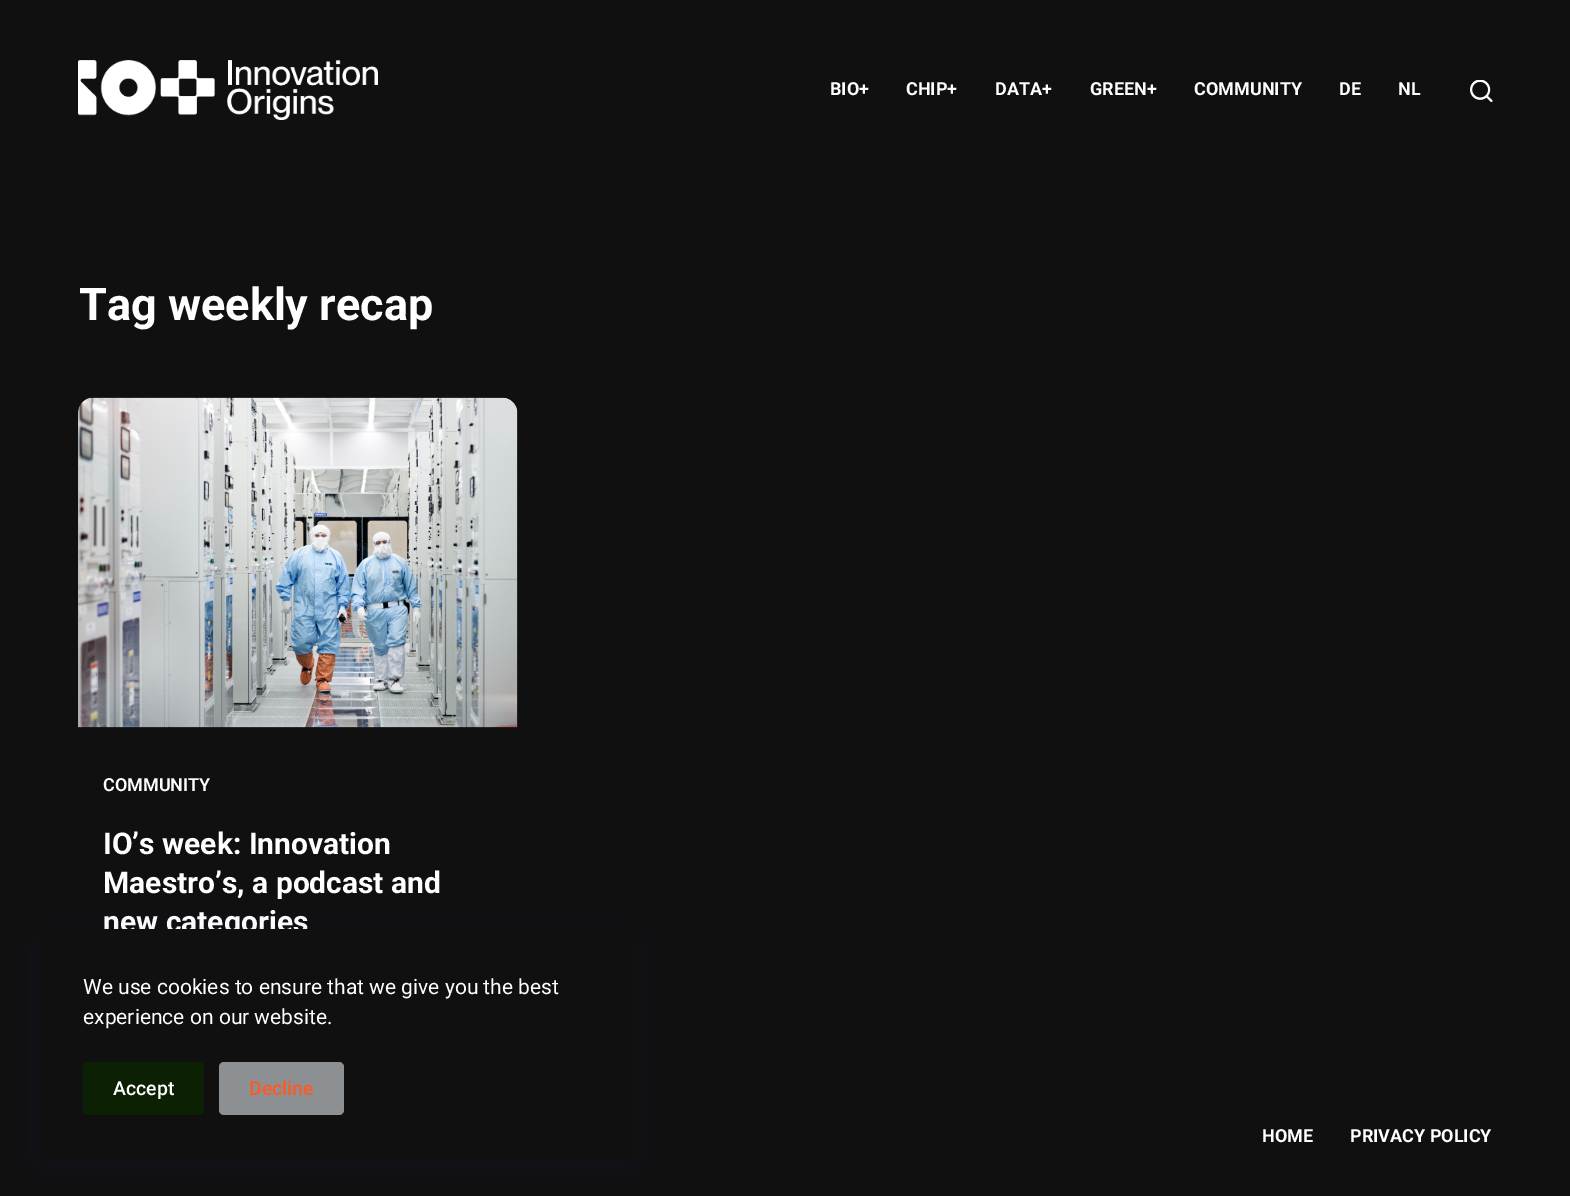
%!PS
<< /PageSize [1570 1196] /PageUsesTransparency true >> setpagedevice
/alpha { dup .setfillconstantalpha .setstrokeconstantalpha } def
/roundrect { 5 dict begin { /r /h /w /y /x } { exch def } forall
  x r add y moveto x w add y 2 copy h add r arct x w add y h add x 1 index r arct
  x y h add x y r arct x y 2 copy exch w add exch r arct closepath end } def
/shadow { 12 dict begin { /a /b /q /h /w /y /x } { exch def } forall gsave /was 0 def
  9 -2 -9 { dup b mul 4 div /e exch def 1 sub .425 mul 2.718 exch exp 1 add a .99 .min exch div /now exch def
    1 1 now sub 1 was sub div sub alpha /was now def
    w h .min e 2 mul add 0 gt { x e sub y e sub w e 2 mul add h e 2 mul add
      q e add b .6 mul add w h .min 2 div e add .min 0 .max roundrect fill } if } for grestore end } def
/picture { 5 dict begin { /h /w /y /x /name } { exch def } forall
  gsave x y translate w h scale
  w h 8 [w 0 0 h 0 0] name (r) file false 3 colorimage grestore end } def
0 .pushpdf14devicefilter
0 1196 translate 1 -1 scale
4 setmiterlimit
0.063 setgray
0 0 1570 1196 rectfill
(img1.rgb) 78 60 300 60 picture
/Roboto-Bold [18 0 0 -18 0 0] selectfont
1 setgray
830 95 moveto (BIO+) show
906 95 moveto (CHIP+) show
995 95 moveto (DATA+) show
1090 95 moveto (GREEN+) show
1194 95 moveto (COMMUNITY) show
1339 95 moveto (DE) show
1398 95 moveto (NL) show
(img2.rgb) 1470 80 23 22 picture
/Roboto-Bold [45 0 0 -45 0 0] selectfont
79 320 moveto (Tag weekly recap) show
(img3.rgb) 78 397 440 331 picture
/Roboto-SemiBold [18 0 0 -18 0 0] selectfont
103 791 moveto (COMMUNITY) show
/Roboto-Bold [30 0 0 -30 0 0] selectfont
103 854 moveto (IO’s week: Innovation) show
103 893 moveto (Maestro’s, a podcast and) show
103 932 moveto (new categories) show
/Roboto-Bold [18 0 0 -18 0 0] selectfont
1262 1142 moveto (HOME) show
1350 1142 moveto (PRIVACY POLICY) show
0.133 0.22 0.396 setrgbcolor
45 944 585 216 0 22.5 0.15 shadow
0.063 setgray
38 929 600 231 5 roundrect fill
/Roboto-Regular [21 0 0 -21 0 0] selectfont
1 setgray
83 994 moveto (We use cookies to ensure that we give you the best) show
83 1024 moveto (experience on our website.) show
0.047 0.129 0.012 setrgbcolor
83 1062 121 53 5 roundrect fill
/Roboto-Medium [19.5 0 0 -19.5 0 0] selectfont
1 setgray
113 1095 moveto (Accept) show
0.553 0.565 0.576 setrgbcolor
219 1062 125 53 5 roundrect fill
1 0.345 0.137 setrgbcolor
249 1095 moveto (Decline) show
.poppdf14devicefilter showpage
